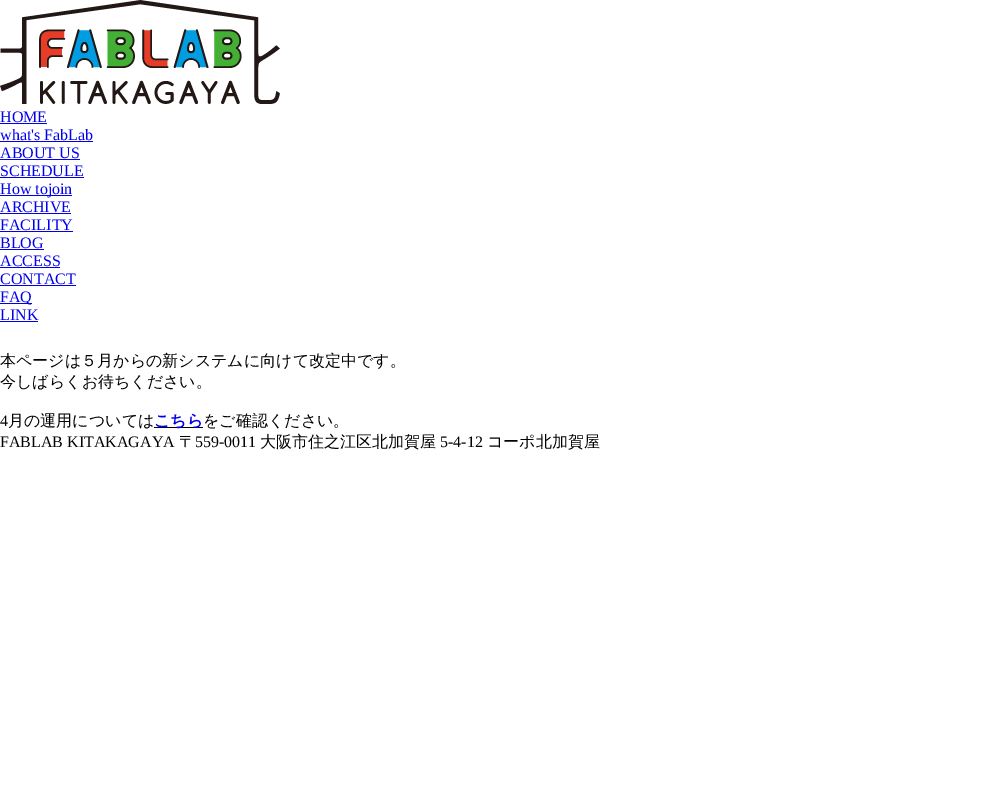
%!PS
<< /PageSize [1000 811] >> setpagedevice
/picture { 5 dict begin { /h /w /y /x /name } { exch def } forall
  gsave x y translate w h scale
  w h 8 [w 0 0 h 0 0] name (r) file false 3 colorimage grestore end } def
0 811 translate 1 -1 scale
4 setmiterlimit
1 setgray
0 0 1000 811 rectfill
(img1.rgb) 0 0 280 104 picture
/LiberationSerif-Regular [16 0 0 -16 0 0] selectfont
0 0 0.933 setrgbcolor
0 122 moveto (HOME) show
0 123 47 1 rectfill
0 140 moveto (what's FabLab) show
0 141 93 1 rectfill
0 158 moveto (ABOUT US) show
0 159 80 1 rectfill
0 176 moveto (SCHEDULE) show
0 177 84 1 rectfill
0 195 72 1 rectfill
0 194 moveto (How tojoin) show
0 212 moveto (ARCHIVE) show
0 213 71 1 rectfill
0 230 moveto (FACILITY) show
0 231 73 1 rectfill
0 248 moveto (BLOG) show
0 249 44 1 rectfill
0 266 moveto (ACCESS) show
0 267 60 1 rectfill
0 284 moveto (CONTACT) show
0 285 76 1 rectfill
0 303 32 1 rectfill
0 302 moveto (FAQ) show
0 320 moveto (LINK) show
0 321 38 1 rectfill
/WenQuanYiZenHei-Medium [16 0 0 -16 0 0] selectfont
0 setgray
0 366 moveto (本ページは５月からの新システムに向けて改定中です。) show
0 387 moveto (今しばらくお待ちください。) show
/LiberationSerif-Regular [16 0 0 -16 0 0] selectfont
0 426 moveto (4) show
/WenQuanYiZenHei-Medium [16 0 0 -16 0 0] selectfont
8 426 moveto (月の運用については) show
154 427 49 1 rectfill
/WenQuanYiZenHei-Bold [16 0 0 -16 0 0] selectfont
0 0 0.933 setrgbcolor
154 426 moveto (こちら) show
/WenQuanYiZenHei-Medium [16 0 0 -16 0 0] selectfont
0 setgray
203 426 moveto (をご確認ください。) show
/LiberationSerif-Regular [16 0 0 -16 0 0] selectfont
0 447 moveto (FABLAB KITAKAGAYA) show
/WenQuanYiZenHei-Medium [16 0 0 -16 0 0] selectfont
179 447 moveto (〒) show
/LiberationSerif-Regular [16 0 0 -16 0 0] selectfont
195 447 moveto (559-0011) show
/WenQuanYiZenHei-Medium [16 0 0 -16 0 0] selectfont
260 447 moveto (大阪市住之江区北加賀屋) show
/LiberationSerif-Regular [16 0 0 -16 0 0] selectfont
440 447 moveto (5-4-12) show
/WenQuanYiZenHei-Medium [16 0 0 -16 0 0] selectfont
487 447 moveto (コーポ北加賀屋) show
showpage
